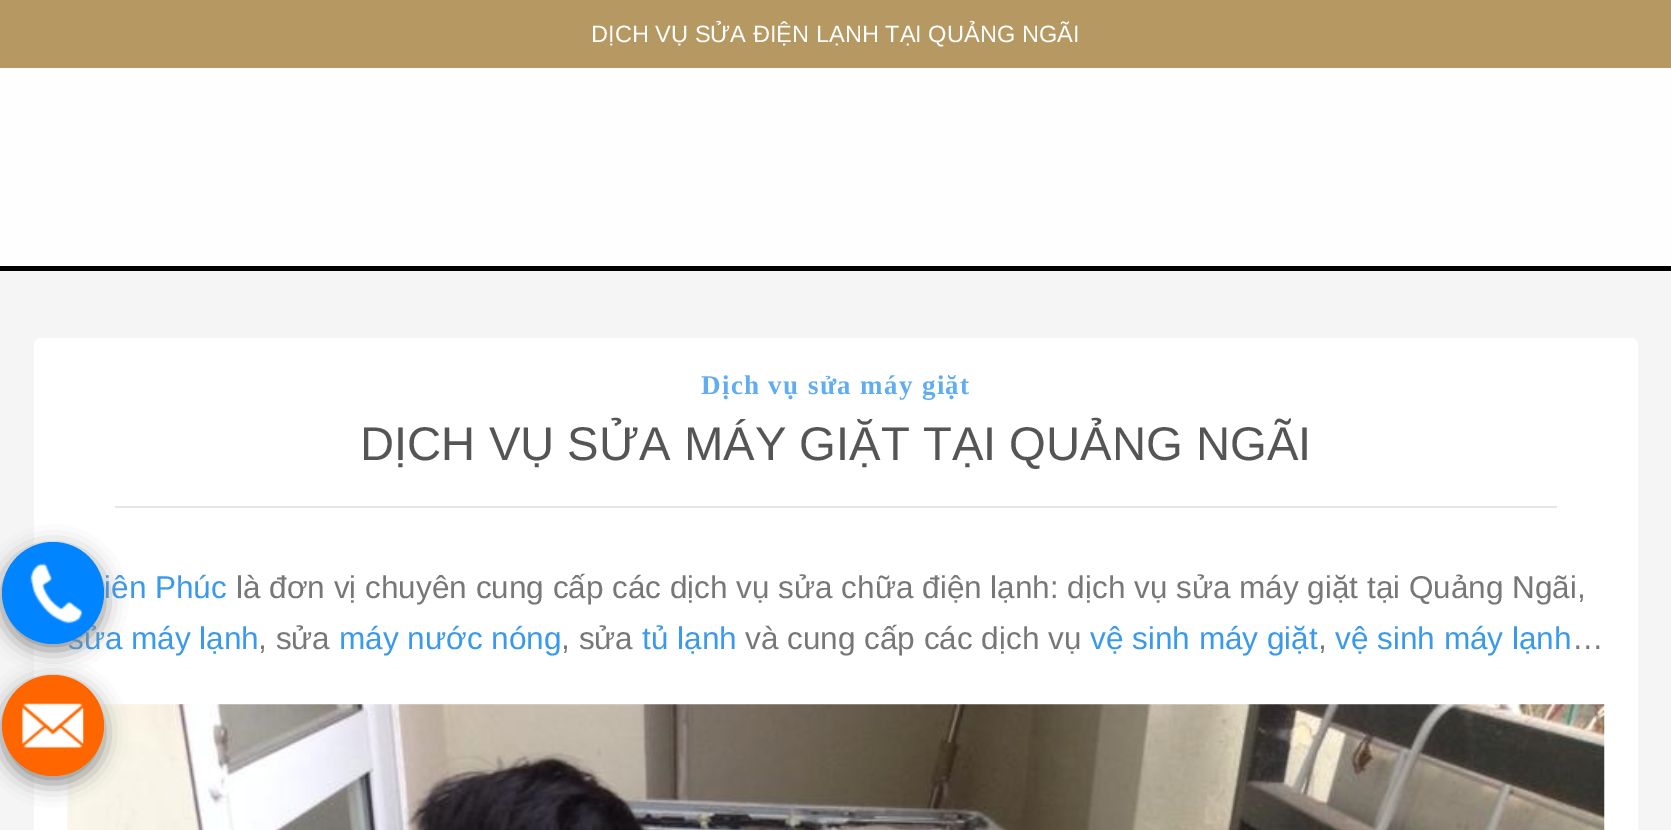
%!PS
<< /PageSize [1671 830] /PageUsesTransparency true >> setpagedevice
/alpha { dup .setfillconstantalpha .setstrokeconstantalpha } def
/roundrect { 5 dict begin { /r /h /w /y /x } { exch def } forall
  x r add y moveto x w add y 2 copy h add r arct x w add y h add x 1 index r arct
  x y h add x y r arct x y 2 copy exch w add exch r arct closepath end } def
/shadow { 12 dict begin { /a /b /q /h /w /y /x } { exch def } forall gsave /was 0 def
  9 -2 -9 { dup b mul 4 div /e exch def 1 sub .425 mul 2.718 exch exp 1 add a .99 .min exch div /now exch def
    1 1 now sub 1 was sub div sub alpha /was now def
    w h .min e 2 mul add 0 gt { x e sub y e sub w e 2 mul add h e 2 mul add
      q e add b .6 mul add w h .min 2 div e add .min 0 .max roundrect fill } if } for grestore end } def
/picture { 5 dict begin { /h /w /y /x /name } { exch def } forall
  gsave x y translate w h scale
  w h 8 [w 0 0 h 0 0] name (r) file false 3 colorimage grestore end } def
0 .pushpdf14devicefilter
0 830 translate 1 -1 scale
4 setmiterlimit
0.961 setgray
0 0 1671 830 rectfill
0.996 setgray
0 68 1671 198 rectfill
0.714 0.596 0.388 setrgbcolor
0 0 1671 68 rectfill
/LiberationSans-Regular [23.6 0 0 -23.6 0 0] selectfont
1 setgray
591 42 moveto (DỊCH VỤ SỬA ĐIỆN LẠNH TẠI QUẢNG NGÃI) show
0 setgray
0 266 1671 5 rectfill
1 setgray
34 338 1604 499 7 roundrect fill
/LiberationSerif-Bold [27 0 0 -27 0 0] selectfont
0.38 0.678 0.945 setrgbcolor
701 394 moveto 1.35 0 (Dịch vụ sửa máy giặt) ashow
/LiberationSans-Regular [47.25 0 0 -47.25 0 0] selectfont
0.333 setgray
360 460 moveto (DỊCH VỤ SỬA MÁY GIẶT TẠI QUẢNG NGÃI) show
0.902 setgray
115 506 1442 2 rectfill
/LiberationSans-Regular [31.5 0 0 -31.5 0 0] selectfont
0.224 0.6 0.929 setrgbcolor
104 598 moveto (iên Phúc) show
0.467 setgray
236 598 moveto (là đơn vị chuyên cung cấp các dịch vụ sửa chữa điện lạnh: dịch vụ sửa máy giặt tại Quảng Ngãi,) show
0.224 0.6 0.929 setrgbcolor
68 649 moveto (sửa máy lạnh) show
0.467 setgray
258 649 moveto (, sửa) show
0.224 0.6 0.929 setrgbcolor
339 649 moveto (máy nước nóng) show
0.467 setgray
561 649 moveto (, sửa) show
0.224 0.6 0.929 setrgbcolor
642 649 moveto (tủ lạnh) show
0.467 setgray
745 649 moveto (và cung cấp các dịch vụ) show
0.224 0.6 0.929 setrgbcolor
1090 649 moveto (vệ sinh máy giặt) show
0.467 setgray
1318 649 moveto (,) show
0.224 0.6 0.929 setrgbcolor
1335 649 moveto (vệ sinh máy lạnh) show
0.467 setgray
1572 649 moveto (…) show
(img1.rgb) 67 704 1538 126 picture
0.533 setgray
2 549 102 101 50.5 11 1 shadow
0 0.518 1 setrgbcolor
newpath 53 593 51 0 360 arc closepath fill
(img2.rgb) 30 563 53 61 picture
0.533 setgray
2 682 102 101 50.5 11 1 shadow
1 0.4 0 setrgbcolor
2 675 102 101 50.5 roundrect fill
(img3.rgb) 22 703 62 45 picture
.poppdf14devicefilter showpage
